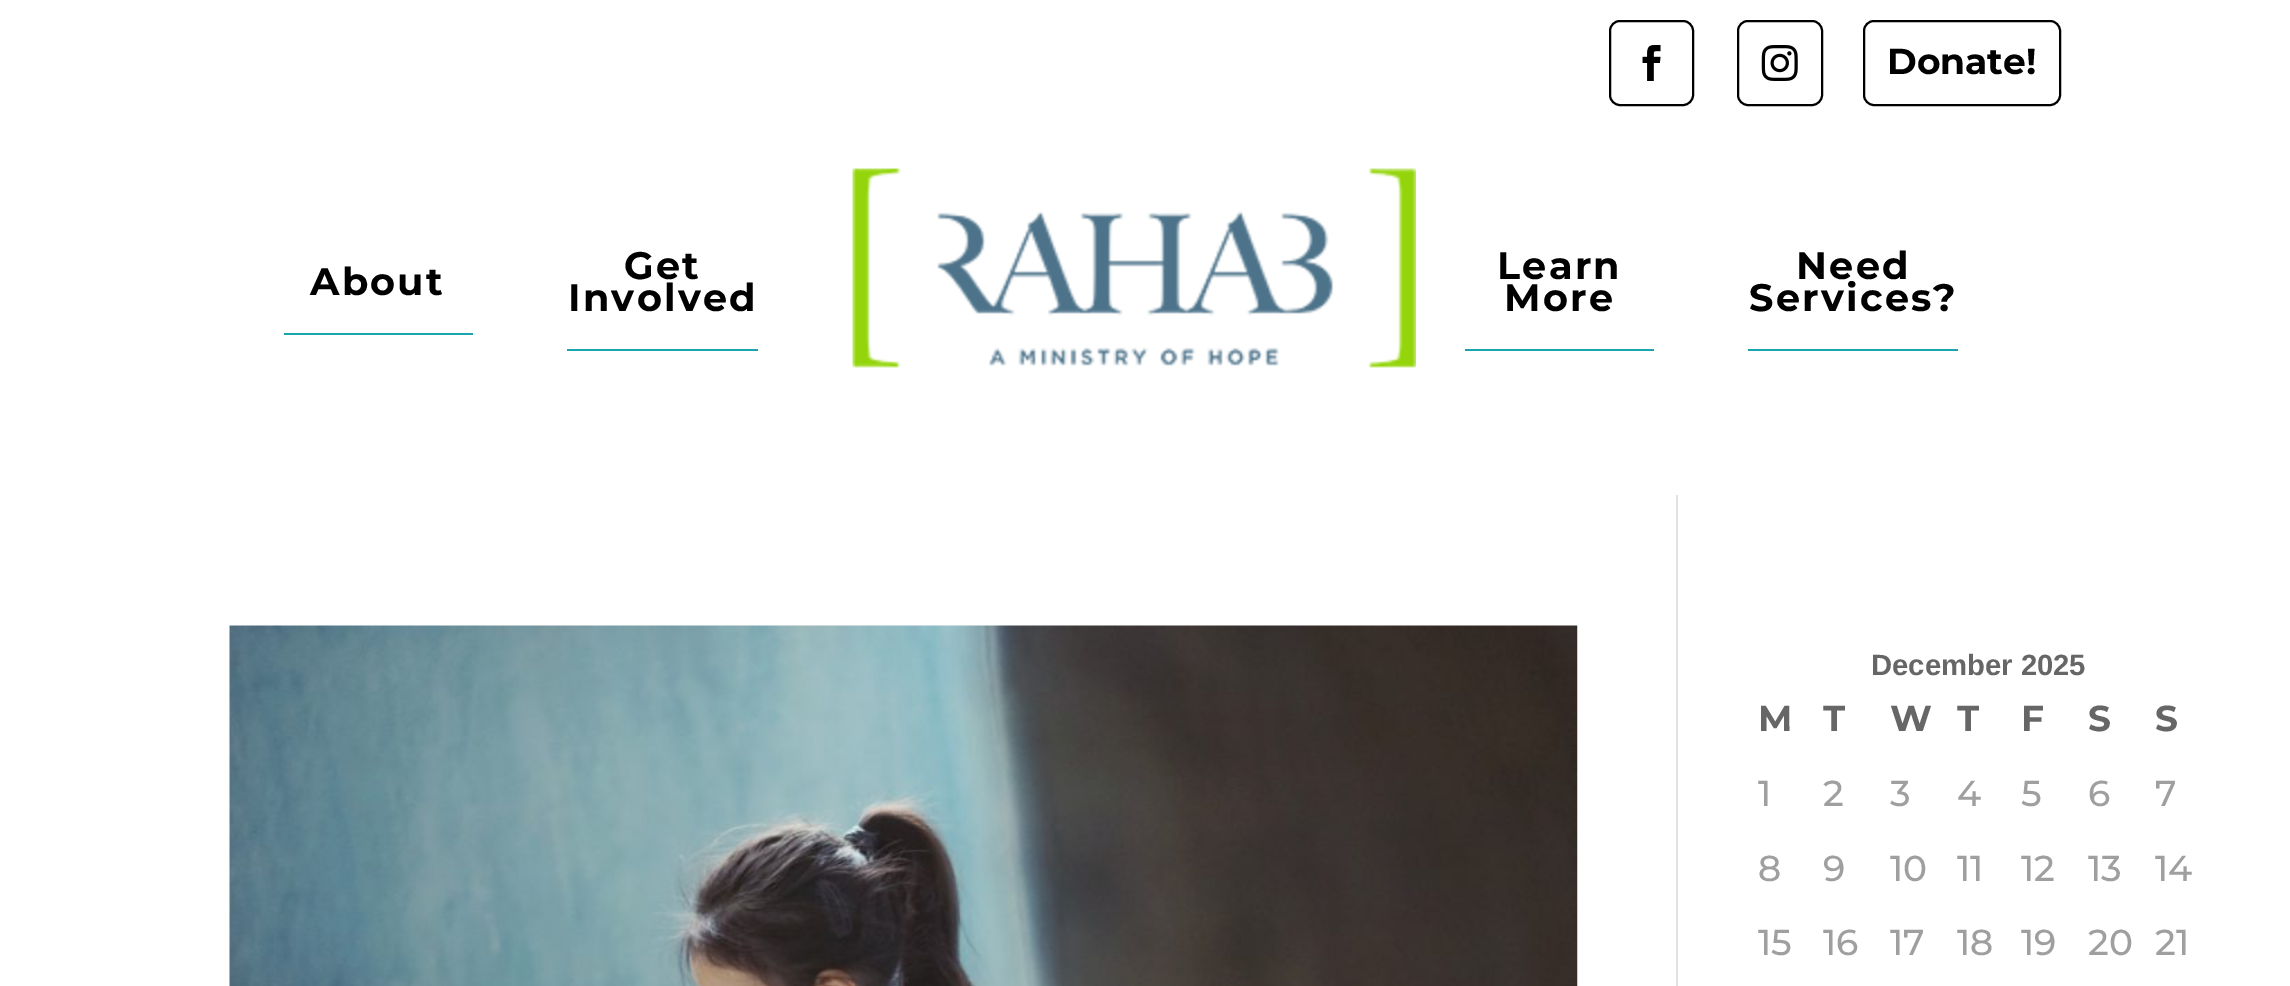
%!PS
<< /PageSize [2290 986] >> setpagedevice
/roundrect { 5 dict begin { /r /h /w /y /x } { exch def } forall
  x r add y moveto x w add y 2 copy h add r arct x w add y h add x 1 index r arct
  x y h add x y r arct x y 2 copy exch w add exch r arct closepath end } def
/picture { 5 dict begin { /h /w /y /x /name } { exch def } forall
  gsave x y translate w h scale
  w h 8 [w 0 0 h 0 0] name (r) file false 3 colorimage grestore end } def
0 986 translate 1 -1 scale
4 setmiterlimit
1 setgray
0 0 2290 986 rectfill
0 setgray
2 setlinewidth
1610 21 83 84 10 roundrect stroke
(img1.rgb) 1642 45 19 36 picture
1738 21 84 84 10 roundrect stroke
(img2.rgb) 1761 45 37 36 picture
1864 21 196 84 10 roundrect stroke
/Montserrat-Bold [36 0 0 -36 0 0] selectfont
1887 74 moveto (Donate!) show
/Montserrat-Bold [38.25 0 0 -38.25 0 0] selectfont
310 295 moveto 2.25 0 (About) ashow
0.098 0.647 0.682 setrgbcolor
284 333 189 2 rectfill
0 setgray
624 279 moveto 2.25 0 (Get) ashow
568 311 moveto 2.25 0 (Involved) ashow
0.098 0.647 0.682 setrgbcolor
567 349 191 2 rectfill
(img3.rgb) 852 168 564 200 picture
0 setgray
1497 279 moveto 2.25 0 (Learn) ashow
1504 311 moveto 2.25 0 (More) ashow
0.098 0.647 0.682 setrgbcolor
1465 349 189 2 rectfill
0 setgray
1796 279 moveto 2.25 0 (Need) ashow
1749 311 moveto 2.25 0 (Services?) ashow
0.098 0.647 0.682 setrgbcolor
1748 349 210 2 rectfill
0.886 setgray
1676 495 2 491 rectfill
(img4.rgb) 229 625 1349 361 picture
/LiberationSans-Bold [29.25 0 0 -29.25 0 0] selectfont
0.4 setgray
1871 675 moveto (December 2025) show
/Montserrat-Bold [36 0 0 -36 0 0] selectfont
1758 731 moveto (M) show
1823 731 moveto (T) show
1890 731 moveto (W) show
1957 731 moveto (T) show
2021 731 moveto (F) show
2088 731 moveto (S) show
2155 731 moveto (S) show
/Montserrat-Medium [36 0 0 -36 0 0] selectfont
0.624 setgray
1758 806 moveto (1) show
1823 806 moveto (2) show
1890 806 moveto (3) show
1957 806 moveto (4) show
2021 806 moveto (5) show
2088 806 moveto (6) show
2155 806 moveto (7) show
1758 881 moveto (8) show
1823 881 moveto (9) show
1890 881 moveto (10) show
1957 881 moveto (11) show
2021 881 moveto (12) show
2088 881 moveto (13) show
2155 881 moveto (14) show
1758 955 moveto (15) show
1823 955 moveto (16) show
1890 955 moveto (17) show
1957 955 moveto (18) show
2021 955 moveto (19) show
2088 955 moveto (20) show
2155 955 moveto (21) show
showpage
